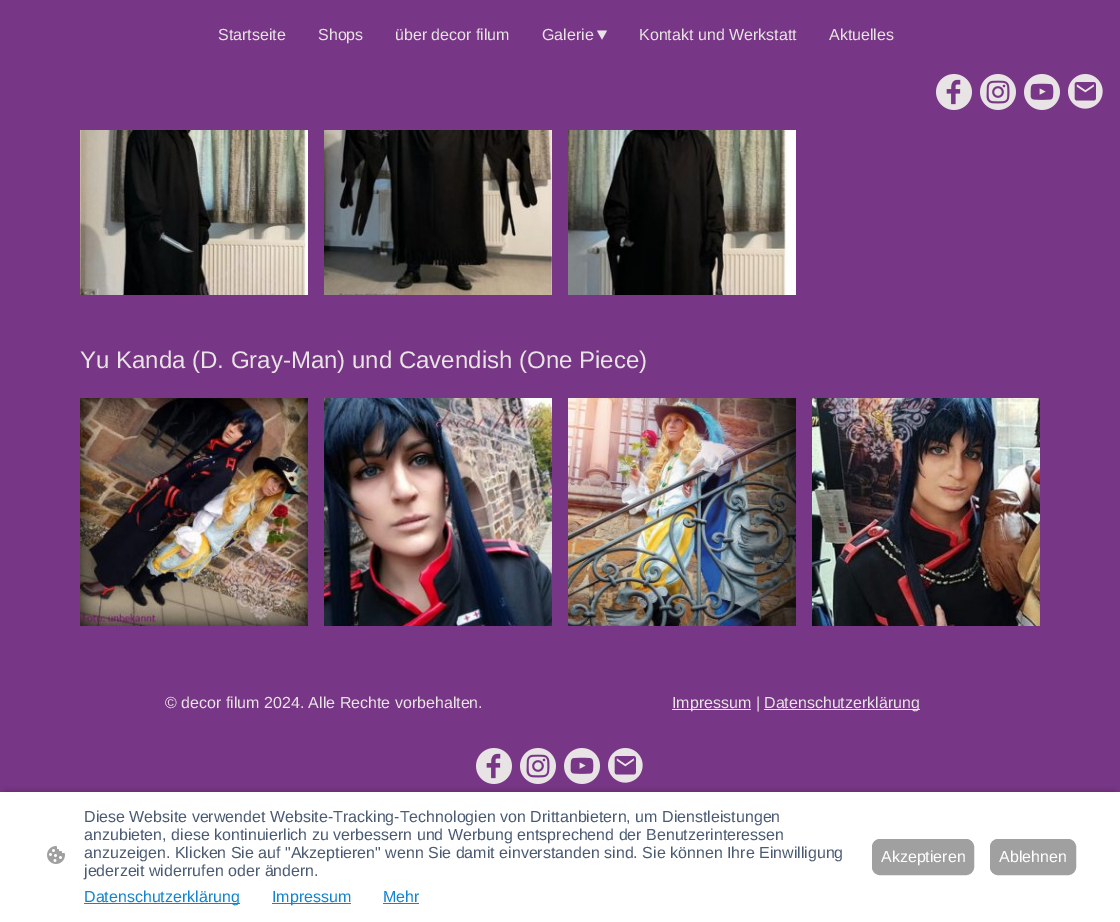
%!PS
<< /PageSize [1120 922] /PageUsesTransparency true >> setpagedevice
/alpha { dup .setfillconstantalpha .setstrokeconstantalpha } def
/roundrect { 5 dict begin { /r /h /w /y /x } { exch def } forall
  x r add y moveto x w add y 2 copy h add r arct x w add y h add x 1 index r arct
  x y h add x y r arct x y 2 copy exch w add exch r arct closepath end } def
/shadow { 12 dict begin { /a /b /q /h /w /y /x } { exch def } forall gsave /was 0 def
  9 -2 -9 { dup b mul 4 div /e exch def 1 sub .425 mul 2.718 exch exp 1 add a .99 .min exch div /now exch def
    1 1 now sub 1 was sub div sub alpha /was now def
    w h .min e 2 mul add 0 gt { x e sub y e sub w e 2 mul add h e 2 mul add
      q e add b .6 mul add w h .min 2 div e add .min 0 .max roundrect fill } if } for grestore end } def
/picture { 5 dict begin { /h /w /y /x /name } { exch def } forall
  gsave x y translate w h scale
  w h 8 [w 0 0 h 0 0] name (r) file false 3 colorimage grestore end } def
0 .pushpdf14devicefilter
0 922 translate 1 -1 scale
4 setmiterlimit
0.471 0.212 0.525 setrgbcolor
0 0 1120 922 rectfill
/LiberationSans-Regular [16 0 0 -16 0 0] selectfont
0.91 0.89 0.894 setrgbcolor
218 40 moveto (Startseite) show
318 40 moveto (Shops) show
395 40 moveto (über decor filum) show
542 40 moveto (Galerie) show
newpath 607 30.5 moveto 602 39.5 lineto 597 30.5 lineto closepath fill
639 40 moveto (Kontakt und Werkstatt) show
829 40 moveto (Aktuelles) show
(img1.rgb) 936 74 36 36 picture
(img2.rgb) 980 74 36 36 picture
(img3.rgb) 1024 74 36 36 picture
(img4.rgb) 1068 74 35 35 picture
(img5.rgb) 80 130 228 165 picture
(img6.rgb) 324 130 228 165 picture
(img7.rgb) 568 130 228 165 picture
/LiberationSans-Regular [24 0 0 -24 0 0] selectfont
80 368 moveto (Yu Kanda \(D. Gray-Man\) und Cavendish \(One Piece\)) show
(img8.rgb) 80 398 228 228 picture
(img9.rgb) 324 398 228 228 picture
(img10.rgb) 568 398 228 228 picture
(img11.rgb) 812 398 228 228 picture
/LiberationSans-Regular [16 0 0 -16 0 0] selectfont
165 708 moveto (© decor filum 2024. Alle Rechte vorbehalten.) show
672 709 79 1 rectfill
672 708 moveto (Impressum |) show
764 709 156 1 rectfill
764 708 moveto (Datenschutzerklärung) show
(img1.rgb) 476 748 36 36 picture
(img2.rgb) 520 748 36 36 picture
(img3.rgb) 564 748 36 36 picture
(img4.rgb) 608 748 35 35 picture
0 setgray
6 795 1108 118 0 4 0.63 shadow
1 setgray
0 792 1120 130 rectfill
(img12.rgb) 47 846 18 18 picture
0.29 0.353 0.451 setrgbcolor
84 822 moveto (Diese Website verwendet Website-Tracking-Technologien von Drittanbietern, um Dienstleistungen) show
84 840 moveto (anzubieten, diese kontinuierlich zu verbessern und Werbung entsprechend der Benutzerinteressen) show
84 858 moveto (anzuzeigen. Klicken Sie auf "Akzeptieren" wenn Sie damit einverstanden sind. Sie können Ihre Einwilligung) show
84 876 moveto (jederzeit widerrufen oder ändern.) show
0.067 0.514 0.82 setrgbcolor
84 903 156 1 rectfill
84 902 moveto (Datenschutzerklärung) show
272 903 79 1 rectfill
272 902 moveto (Impressum) show
383 902 moveto (Mehr) show
383 903 36 1 rectfill
0.627 setgray
872.5 839.5 101 35 7.5 roundrect gsave fill grestore
stroke
1 setgray
881 862 moveto (Akzeptieren) show
0.627 setgray
990.5 839.5 85 35 7.5 roundrect gsave fill grestore
stroke
1 setgray
999 862 moveto (Ablehnen) show
.poppdf14devicefilter showpage
